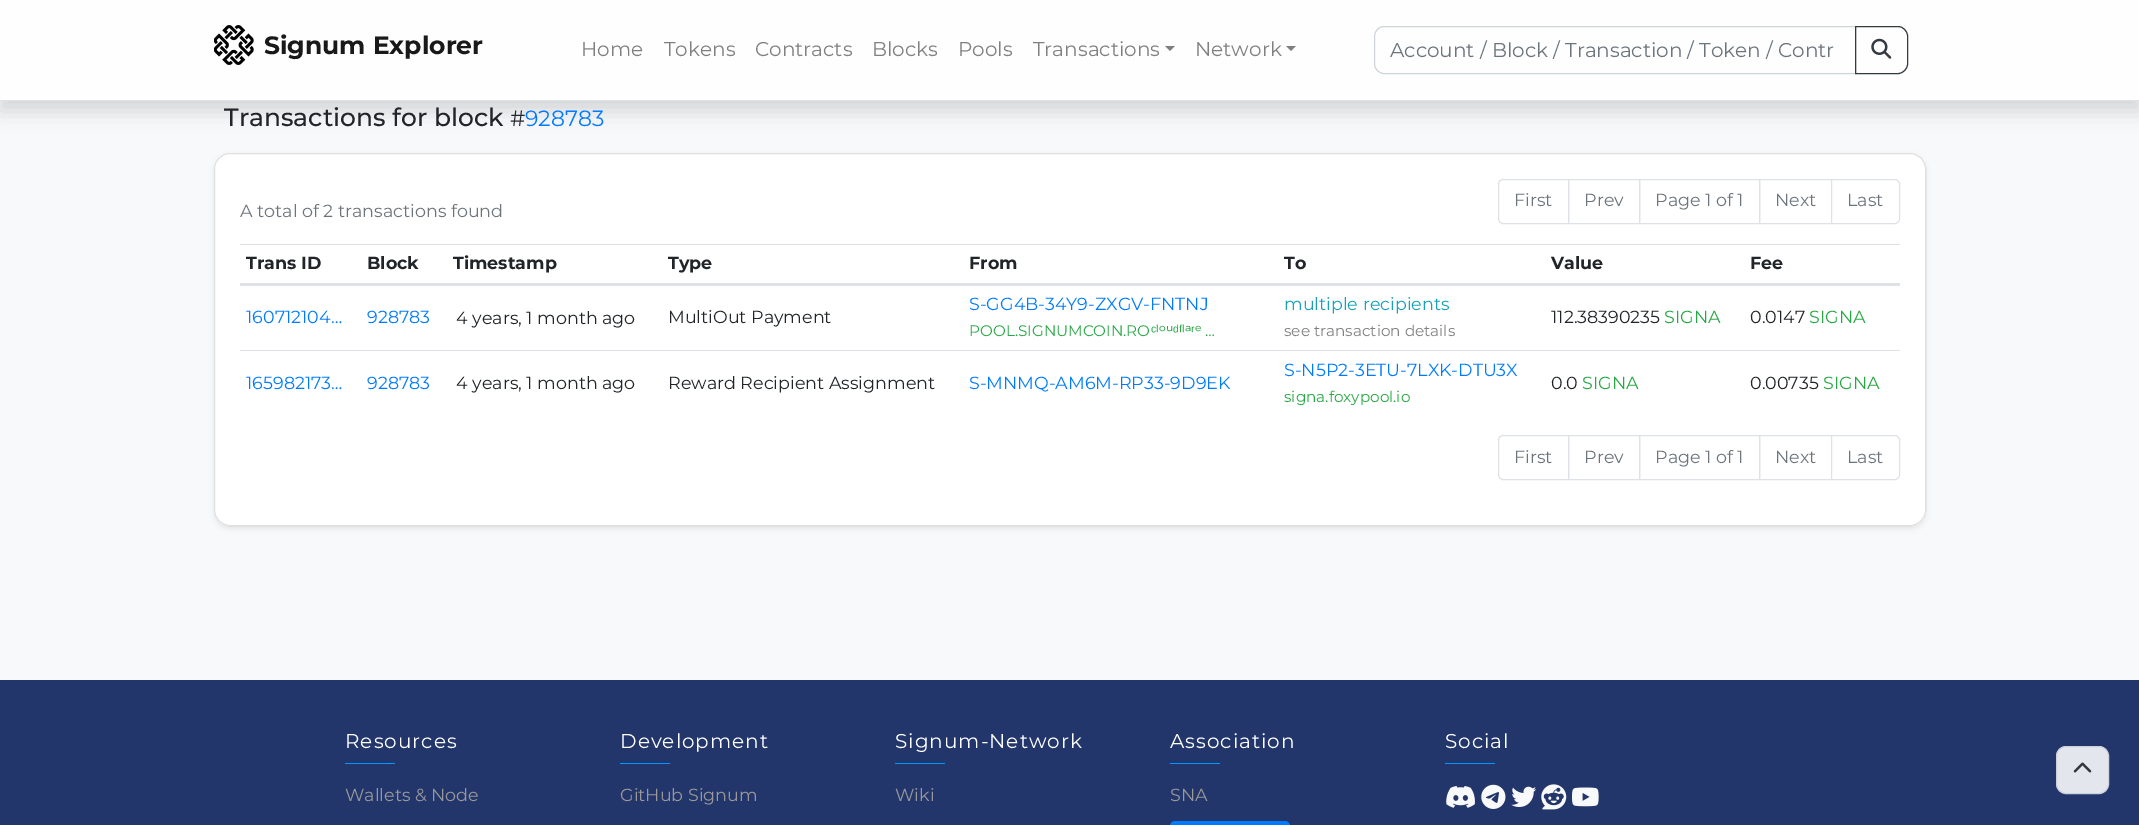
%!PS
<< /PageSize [2139 825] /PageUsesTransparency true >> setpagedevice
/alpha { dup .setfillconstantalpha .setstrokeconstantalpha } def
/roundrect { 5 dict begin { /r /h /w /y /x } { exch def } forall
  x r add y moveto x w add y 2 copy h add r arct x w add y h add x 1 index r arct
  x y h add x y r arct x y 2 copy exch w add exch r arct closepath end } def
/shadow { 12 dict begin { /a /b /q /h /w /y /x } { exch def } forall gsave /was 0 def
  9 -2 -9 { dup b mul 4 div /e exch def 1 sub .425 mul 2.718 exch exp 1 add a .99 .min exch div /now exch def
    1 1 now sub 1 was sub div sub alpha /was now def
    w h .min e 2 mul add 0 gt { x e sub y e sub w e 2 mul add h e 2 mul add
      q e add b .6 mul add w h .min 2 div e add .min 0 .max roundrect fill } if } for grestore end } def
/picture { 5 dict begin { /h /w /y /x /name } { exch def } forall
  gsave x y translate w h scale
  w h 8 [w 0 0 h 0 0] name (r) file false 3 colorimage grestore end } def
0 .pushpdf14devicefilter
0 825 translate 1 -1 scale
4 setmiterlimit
0.973 0.976 0.98 setrgbcolor
0 0 2139 825 rectfill
0 setgray
0 10 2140 101 0 10 0.15 shadow
0.996 setgray
0 0 2139 100 rectfill
0.871 0.886 0.902 setrgbcolor
0 100 2139 1 rectfill
(img1.rgb) 214 25 40 40 picture
/Montserrat-Bold [25 0 0 -25 0 0] selectfont
0.098 setgray
264 54 moveto (Signum Explorer) show
/Montserrat-Regular [20 0 0 -20 0 0] selectfont
0.502 setgray
581 56 moveto (Home) show
664 56 moveto (Tokens) show
755 56 moveto (Contracts) show
872 56 moveto (Blocks) show
958 56 moveto (Pools) show
1033 56 moveto (Transactions) show
0.498 setgray
newpath 1165 46 moveto 1175 46 lineto 1170 51 lineto closepath fill
0.502 setgray
1195 56 moveto (Network) show
0.498 setgray
newpath 1286 46 moveto 1296 46 lineto 1291 51 lineto closepath fill
0.808 0.831 0.855 setrgbcolor
newpath 1384 26.5 moveto 1855.5 26.5 lineto 1855.5 73.5 lineto 1384 73.5 lineto 1379 73.5 1374.5 69 1374.5 64 curveto 1374.5 36 lineto 1374.5 31 1379 26.5 1384 26.5 curveto closepath stroke
0.424 0.459 0.49 setrgbcolor
1390 57 moveto (Account / Block / Transaction / Token / Contr) show
0.204 0.227 0.251 setrgbcolor
newpath 1855.5 26.5 moveto 1898 26.5 lineto 1903 26.5 1907.5 31 1907.5 36 curveto 1907.5 64 lineto 1907.5 69 1903 73.5 1898 73.5 curveto 1855.5 73.5 lineto closepath stroke
(img2.rgb) 1871 38 21 21 picture
/Montserrat-Medium [25 0 0 -25 0 0] selectfont
0.129 0.145 0.161 setrgbcolor
224 126 moveto (Transactions for block) show
/Montserrat-Regular [22 0 0 -22 0 0] selectfont
510 126 moveto (#) show
0 0.482 1 setrgbcolor
525 126 moveto (928783) show
0 setgray
214 155 1712 374 16 2.5 0.07 shadow
1 setgray
214 153 1712 373 16 roundrect fill
0.12 alpha
0 setgray
214.5 153.5 1711 372 15.5 roundrect stroke
/Montserrat-Regular [17.5 0 0 -17.5 0 0] selectfont
1 alpha
0.424 0.459 0.49 setrgbcolor
240 217 moveto (A total of 2 transactions found) show
0.871 0.886 0.902 setrgbcolor
newpath 1503 179.5 moveto 1568.5 179.5 lineto 1568.5 223.5 lineto 1503 223.5 lineto 1500.5 223.5 1498.5 221.5 1498.5 219 curveto 1498.5 184 lineto 1498.5 181.5 1500.5 179.5 1503 179.5 curveto closepath stroke
0.424 0.459 0.49 setrgbcolor
1514 206 moveto (First) show
0.871 0.886 0.902 setrgbcolor
1568.5 179.5 71 44 rectstroke
0.424 0.459 0.49 setrgbcolor
1584 206 moveto (Prev) show
0.871 0.886 0.902 setrgbcolor
1639.5 179.5 120 44 rectstroke
0.424 0.459 0.49 setrgbcolor
1655 206 moveto (Page 1 of 1) show
0.871 0.886 0.902 setrgbcolor
1759.5 179.5 73 44 rectstroke
0.424 0.459 0.49 setrgbcolor
1775 206 moveto (Next) show
1 setgray
newpath 1831.5 179.5 moveto 1895 179.5 lineto 1897.5 179.5 1899.5 181.5 1899.5 184 curveto 1899.5 219 lineto 1899.5 221.5 1897.5 223.5 1895 223.5 curveto 1831.5 223.5 lineto closepath gsave fill grestore
0.871 0.886 0.902 setrgbcolor
stroke
0.424 0.459 0.49 setrgbcolor
1847 206 moveto (Last) show
/Montserrat-Bold [17.5 0 0 -17.5 0 0] selectfont
0.129 0.145 0.161 setrgbcolor
246 269 moveto (Trans ID) show
367 269 moveto (Block) show
453 269 moveto (Timestamp) show
668 269 moveto (Type) show
969 269 moveto (From) show
1284 269 moveto (To) show
1551 269 moveto (Value) show
0.871 0.886 0.902 setrgbcolor
240 244 1660 1 rectfill
240 283 1660 3 rectfill
0.129 0.145 0.161 setrgbcolor
1750 269 moveto (Fee) show
/Montserrat-Regular [17.5 0 0 -17.5 0 0] selectfont
0 0.482 1 setrgbcolor
246 323 moveto (160712104…) show
367 323 moveto (928783) show
0.129 0.145 0.161 setrgbcolor
456 324 moveto (4 years, 1 month ago) show
668 323 moveto (MultiOut Payment) show
0 0.482 1 setrgbcolor
969 310 moveto (S-GG4B-34Y9-ZXGV-FNTNJ) show
/Montserrat-Regular [15.25 0 0 -15.25 0 0] selectfont
0.157 0.655 0.271 setrgbcolor
969 336 moveto (POOL.SIGNUMCOIN.RO) show
/LiberationSans-Regular [15.25 0 0 -15.25 0 0] selectfont
1151 336 moveto (ᶜˡ) show
/Montserrat-Regular [15.25 0 0 -15.25 0 0] selectfont
1159 336 moveto (ᵒᵘ) show
/LiberationSans-Regular [15.25 0 0 -15.25 0 0] selectfont
1173 336 moveto (ᵈᶠˡ) show
/Montserrat-Regular [15.25 0 0 -15.25 0 0] selectfont
1185 336 moveto (ᵃ) show
/LiberationSans-Regular [15.25 0 0 -15.25 0 0] selectfont
1191 336 moveto (ʳ) show
/Montserrat-Regular [15.25 0 0 -15.25 0 0] selectfont
1195 336 moveto (ᵉ …) show
/Montserrat-Regular [17.5 0 0 -17.5 0 0] selectfont
0.09 0.635 0.722 setrgbcolor
1284 310 moveto (multiple recipients) show
/Montserrat-Regular [15.25 0 0 -15.25 0 0] selectfont
0.502 setgray
1284 336 moveto (see transaction details) show
/Montserrat-Regular [17.5 0 0 -17.5 0 0] selectfont
0.129 0.145 0.161 setrgbcolor
1551 323 moveto (112.38390235) show
0.157 0.655 0.271 setrgbcolor
1664 323 moveto (SIGNA) show
0.129 0.145 0.161 setrgbcolor
1750 323 moveto (0.0147) show
0.157 0.655 0.271 setrgbcolor
1809 323 moveto (SIGNA) show
0 0.482 1 setrgbcolor
246 389 moveto (165982173…) show
367 389 moveto (928783) show
0.129 0.145 0.161 setrgbcolor
456 389 moveto (4 years, 1 month ago) show
668 389 moveto (Reward Recipient Assignment) show
0 0.482 1 setrgbcolor
969 389 moveto (S-MNMQ-AM6M-RP33-9D9EK) show
1284 376 moveto (S-N5P2-3ETU-7LXK-DTU3X) show
/Montserrat-Regular [15.25 0 0 -15.25 0 0] selectfont
0.157 0.655 0.271 setrgbcolor
1284 402 moveto (signa.foxypool.io) show
/Montserrat-Regular [17.5 0 0 -17.5 0 0] selectfont
0.129 0.145 0.161 setrgbcolor
1551 389 moveto (0.0) show
0.157 0.655 0.271 setrgbcolor
1582 389 moveto (SIGNA) show
0.871 0.886 0.902 setrgbcolor
240 350 1660 1 rectfill
0.129 0.145 0.161 setrgbcolor
1750 389 moveto (0.00735) show
0.157 0.655 0.271 setrgbcolor
1823 389 moveto (SIGNA) show
0.871 0.886 0.902 setrgbcolor
newpath 1503 435.5 moveto 1568.5 435.5 lineto 1568.5 479.5 lineto 1503 479.5 lineto 1500.5 479.5 1498.5 477.5 1498.5 475 curveto 1498.5 440 lineto 1498.5 437.5 1500.5 435.5 1503 435.5 curveto closepath stroke
0.424 0.459 0.49 setrgbcolor
1514 463 moveto (First) show
0.871 0.886 0.902 setrgbcolor
1568.5 435.5 71 44 rectstroke
0.424 0.459 0.49 setrgbcolor
1584 463 moveto (Prev) show
0.871 0.886 0.902 setrgbcolor
1639.5 435.5 120 44 rectstroke
0.424 0.459 0.49 setrgbcolor
1655 463 moveto (Page 1 of 1) show
0.871 0.886 0.902 setrgbcolor
1759.5 435.5 73 44 rectstroke
0.424 0.459 0.49 setrgbcolor
1775 463 moveto (Next) show
1 setgray
newpath 1831.5 435.5 moveto 1895 435.5 lineto 1897.5 435.5 1899.5 437.5 1899.5 440 curveto 1899.5 475 lineto 1899.5 477.5 1897.5 479.5 1895 479.5 curveto 1831.5 479.5 lineto closepath gsave fill grestore
0.871 0.886 0.902 setrgbcolor
stroke
0.424 0.459 0.49 setrgbcolor
1847 463 moveto (Last) show
0.133 0.212 0.42 setrgbcolor
0 680 2139 145 rectfill
/Montserrat-Regular [20 0 0 -20 0 0] selectfont
1 setgray
345 748 moveto 1 0 (Resources) ashow
0 0.6 1 setrgbcolor
345 763 50 1 rectfill
/Montserrat-Regular [17.5 0 0 -17.5 0 0] selectfont
0.6 setgray
345 801 moveto (Wallets & Node) show
/Montserrat-Regular [20 0 0 -20 0 0] selectfont
1 setgray
620 748 moveto 1 0 (Development) ashow
0 0.6 1 setrgbcolor
620 763 50 1 rectfill
/Montserrat-Regular [17.5 0 0 -17.5 0 0] selectfont
0.6 setgray
620 801 moveto (GitHub Signum) show
/Montserrat-Regular [20 0 0 -20 0 0] selectfont
1 setgray
895 748 moveto 1 0 (Signum-Network) ashow
0 0.6 1 setrgbcolor
895 763 50 1 rectfill
/Montserrat-Regular [17.5 0 0 -17.5 0 0] selectfont
0.6 setgray
895 801 moveto (Wiki) show
/Montserrat-Regular [20 0 0 -20 0 0] selectfont
1 setgray
1170 748 moveto 1 0 (Association) ashow
0 0.6 1 setrgbcolor
1170 763 50 1 rectfill
/Montserrat-Regular [17.5 0 0 -17.5 0 0] selectfont
0.6 setgray
1170 801 moveto (SNA) show
0 0.482 1 setrgbcolor
1170.5 821.5 119 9 4.5 roundrect gsave fill grestore
stroke
/Montserrat-Regular [20 0 0 -20 0 0] selectfont
1 setgray
1445 748 moveto 1 0 (Social) ashow
0 0.6 1 setrgbcolor
1445 763 50 1 rectfill
(img3.rgb) 1446 786 29 22 picture
(img4.rgb) 1481 784 25 25 picture
(img5.rgb) 1511 786 26 21 picture
(img6.rgb) 1541 784 26 26 picture
(img7.rgb) 1572 787 27 20 picture
0.89 0.902 0.925 setrgbcolor
2056.5 746.5 52 47 9.5 roundrect gsave fill grestore
0.796 0.82 0.855 setrgbcolor
stroke
(img8.rgb) 2073 762 19 11 picture
.poppdf14devicefilter showpage
